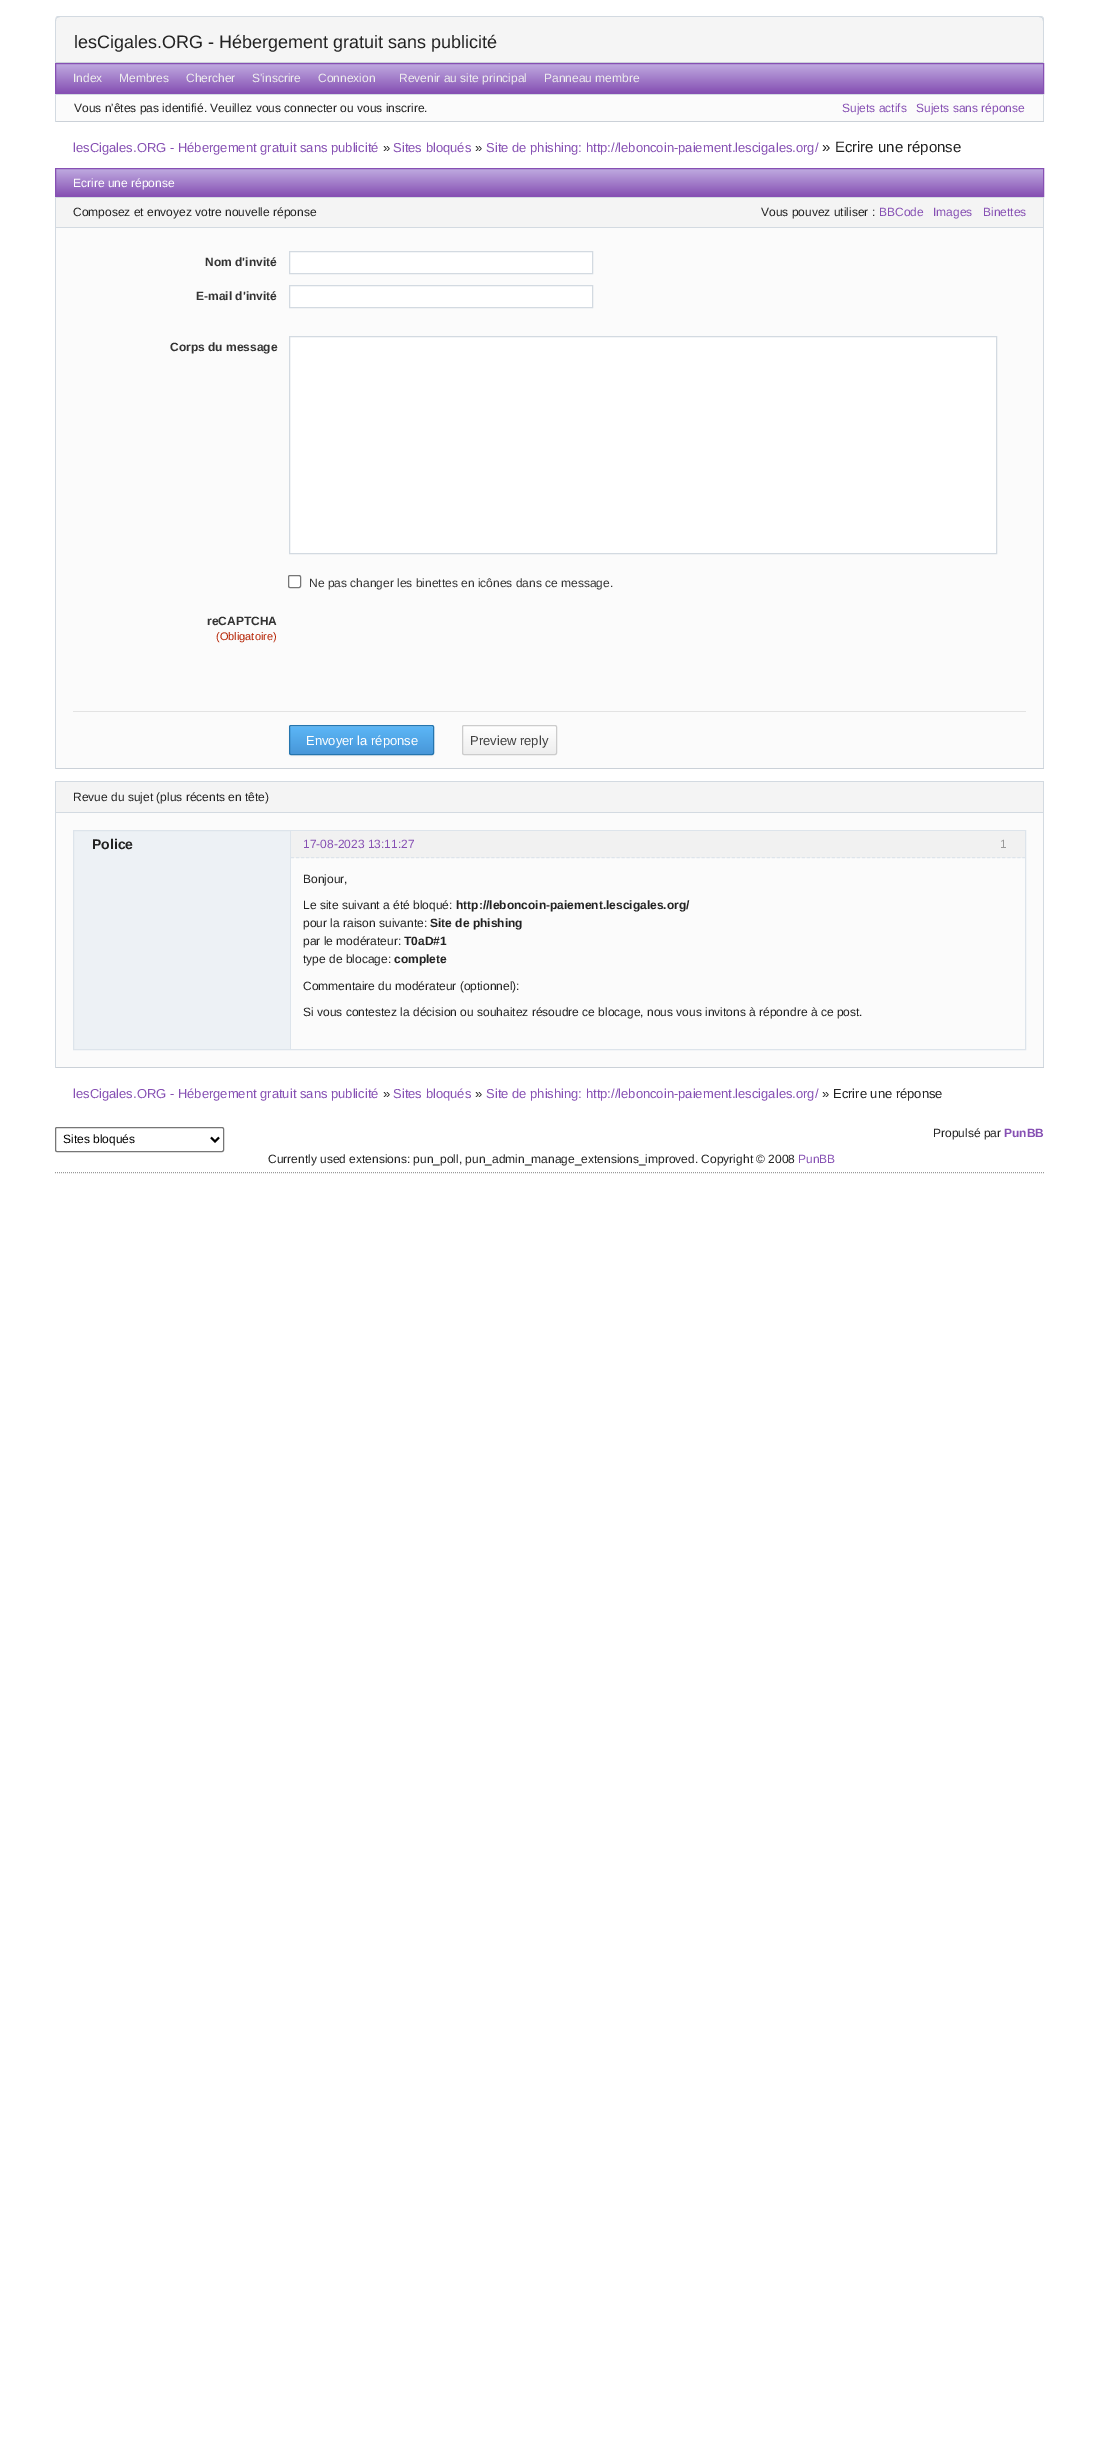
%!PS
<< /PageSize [1099 2443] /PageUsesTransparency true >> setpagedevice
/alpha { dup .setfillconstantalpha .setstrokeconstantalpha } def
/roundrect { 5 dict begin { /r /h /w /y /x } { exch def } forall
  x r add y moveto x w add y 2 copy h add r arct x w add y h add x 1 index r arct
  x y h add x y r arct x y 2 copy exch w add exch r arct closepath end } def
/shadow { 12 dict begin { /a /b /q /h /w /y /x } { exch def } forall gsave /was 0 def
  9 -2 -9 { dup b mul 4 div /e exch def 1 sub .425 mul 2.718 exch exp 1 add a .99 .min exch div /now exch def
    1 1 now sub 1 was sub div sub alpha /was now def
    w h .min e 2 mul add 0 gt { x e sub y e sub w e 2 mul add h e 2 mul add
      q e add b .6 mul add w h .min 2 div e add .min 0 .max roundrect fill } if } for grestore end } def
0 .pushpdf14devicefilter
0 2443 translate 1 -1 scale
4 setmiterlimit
1 setgray
0 0 1099 2443 rectfill
0.961 setgray
newpath 60 16 moveto 1039 16 lineto 1042 16 1044 18 1044 21 curveto 1044 63 lineto 55 63 lineto 55 21 lineto 55 18 57 16 60 16 curveto closepath fill
0.827 0.855 0.882 setrgbcolor
newpath 60 16 moveto 58 16 57 16 56 17 curveto 57 18 lineto 60 17 lineto 1039 17 lineto 1042 18 lineto 1043 17 lineto 1042 16 1040 16 1039 16 curveto closepath fill
newpath 1044 63 moveto 1044 21 lineto 1044 20 1044 18 1043 17 curveto 1042 18 lineto 1042 19 1043 20 1043 21 curveto 1043 62 lineto closepath fill
0.796 0.82 0.847 setrgbcolor
newpath 1044 63 moveto 1043 62 lineto 56 62 lineto 55 63 lineto closepath fill
0.827 0.855 0.882 setrgbcolor
newpath 55 63 moveto 56 62 lineto 56 21 lineto 56 20 56 19 57 18 curveto 56 17 lineto 56 18 55 20 55 21 curveto closepath fill
/LiberationSans-Regular [18 0 0 -18 0 0] selectfont
0.133 setgray
74 48 moveto (lesCigales.ORG - Hébergement gratuit sans publicité) show
gsave newpath 56 64 moveto 1043 64 lineto 1043 93 lineto 56 93 lineto closepath clip newpath
<< /ShadingType 2 /ColorSpace /DeviceRGB /Coords [550 93 550 64] /Extend [true true] /Function << /FunctionType 2 /Domain [0 1] /C0 [0.525 0.314 0.702] /C1 [0.749 0.667 0.878] /N 1 >> >> shfill grestore
0.525 0.314 0.702 setrgbcolor
55.5 63.5 988 30 rectstroke
/LiberationSans-Regular [12 0 0 -12 0 0] selectfont
0.933 setgray
73 82 moveto (Index) show
119 82 moveto (Membres) show
186 82 moveto (Chercher) show
252 82 moveto (S'inscrire) show
318 82 moveto (Connexion) show
399 82 moveto (Revenir au site principal) show
544 82 moveto (Panneau membre) show
0.984 setgray
56 95 987 26 rectfill
0.827 0.855 0.882 setrgbcolor
55 94 989 1 rectfill
1043 94 1 28 rectfill
0.796 0.82 0.847 setrgbcolor
55 121 989 1 rectfill
0.827 0.855 0.882 setrgbcolor
55 94 1 28 rectfill
0.133 setgray
74 112 moveto (Vous n'êtes pas identifié. Veuillez vous connecter ou vous inscrire.) show
0.525 0.314 0.702 setrgbcolor
842 112 moveto (Sujets actifs) show
916 112 moveto (Sujets sans réponse) show
/LiberationSans-Regular [13 0 0 -13 0 0] selectfont
73 152 moveto (lesCigales.ORG - Hébergement gratuit sans publicité) show
0.133 setgray
383 152 moveto (») show
0.525 0.314 0.702 setrgbcolor
393 152 moveto (Sites bloqués) show
0.133 setgray
475 152 moveto (») show
0.525 0.314 0.702 setrgbcolor
486 152 moveto (Site de phishing: http://leboncoin-paiement.lescigales.org/) show
/LiberationSans-Regular [15 0 0 -15 0 0] selectfont
0.133 setgray
822 152 moveto (» Ecrire une réponse) show
gsave newpath 56 169 moveto 1043 169 lineto 1043 196 lineto 56 196 lineto closepath clip newpath
<< /ShadingType 2 /ColorSpace /DeviceRGB /Coords [550 196 550 169] /Extend [true true] /Function << /FunctionType 2 /Domain [0 1] /C0 [0.525 0.314 0.702] /C1 [0.749 0.667 0.878] /N 1 >> >> shfill grestore
0.525 0.314 0.702 setrgbcolor
55.5 168.5 988 28 rectstroke
/LiberationSans-Regular [12 0 0 -12 0 0] selectfont
1 setgray
73 187 moveto (Ecrire une réponse) show
0.957 setgray
56 198 987 29 rectfill
0.827 0.855 0.882 setrgbcolor
55 197 989 1 rectfill
1043 197 1 30 rectfill
55 197 1 30 rectfill
0.133 setgray
73 216 moveto (Composez et envoyez votre nouvelle réponse) show
0.984 setgray
56 228 987 540 rectfill
0.827 0.855 0.882 setrgbcolor
55 227 989 1 rectfill
1043 227 1 542 rectfill
0.796 0.82 0.847 setrgbcolor
55 768 989 1 rectfill
0.827 0.855 0.882 setrgbcolor
55 227 1 542 rectfill
0.133 setgray
761 216 moveto (Vous pouvez utiliser :) show
0.525 0.314 0.702 setrgbcolor
879 216 moveto (BBCode) show
933 216 moveto (Images) show
983 216 moveto (Binettes) show
/LiberationSans-Bold [12 0 0 -12 0 0] selectfont
0.2 setgray
205 266 moveto (Nom d'invité) show
1 setgray
newpath 289.5 251.5 moveto 592.5 251.5 lineto 592.5 273.5 lineto 289.5 273.5 lineto closepath gsave fill grestore
0.827 0.855 0.882 setrgbcolor
stroke
0.2 setgray
196 300 moveto (E-mail d'invité) show
1 setgray
newpath 289.5 285.5 moveto 592.5 285.5 lineto 592.5 307.5 lineto 289.5 307.5 lineto closepath gsave fill grestore
0.827 0.855 0.882 setrgbcolor
stroke
0.2 setgray
170 351 moveto (Corps du message) show
1 setgray
newpath 289.5 336.5 moveto 996.5 336.5 lineto 996.5 553.5 lineto 289.5 553.5 lineto closepath gsave fill grestore
0.827 0.855 0.882 setrgbcolor
stroke
1 setgray
288.5 575.5 12 12 1.5 roundrect gsave fill grestore
0.463 setgray
stroke
/LiberationSans-Regular [12 0 0 -12 0 0] selectfont
0.2 setgray
309 587 moveto (Ne pas changer les binettes en icônes dans ce message.) show
/LiberationSans-Bold [12 0 0 -12 0 0] selectfont
207 625 moveto (reCAPTCHA) show
/LiberationSans-Regular [11 0 0 -11 0 0] selectfont
0.706 0.125 0 setrgbcolor
216 640 moveto (\(Obligatoire\)) show
0.89 setgray
73 711 953 1 rectfill
0 setgray
289 726 145 30 2 1 0.05 shadow
gsave
289 725 145 30 2 roundrect clip newpath
gsave newpath 289 726 moveto 434 726 lineto 434 754 lineto 289 754 lineto closepath clip newpath
<< /ShadingType 2 /ColorSpace /DeviceRGB /Coords [362 726 362 754] /Extend [true true] /Function << /FunctionType 2 /Domain [0 1] /C0 [0.361 0.718 0.969] /C1 [0.282 0.592 0.851] /N 1 >> >> shfill grestore
grestore
0.49 0.773 0.973 setrgbcolor
newpath 291 727 moveto 432 727 lineto 433 727 433 727 433 728 curveto 433 727 433 726 432 726 curveto 290 726 lineto 290 728 lineto 290 727 290 727 291 727 curveto closepath fill
0.145 0.459 0.682 setrgbcolor
289.5 725.5 144 29 1.5 roundrect stroke
/LiberationSans-Regular [13 0 0 -13 0 0] selectfont
1 setgray
306 745 moveto (Envoyer la réponse) show
gsave
462 725 95 30 2 roundrect clip newpath
gsave newpath 462 726 moveto 557 726 lineto 557 754 lineto 462 754 lineto closepath clip newpath
<< /ShadingType 2 /ColorSpace /DeviceRGB /Coords [510 726 510 754] /Extend [true true] /Function << /FunctionType 2 /Domain [0 1] /C0 [1 1 1] /C1 [0.933 0.933 0.933] /N 1 >> >> shfill grestore
grestore
0.8 setgray
462.5 725.5 94 29 1.5 roundrect stroke
0.251 setgray
470 745 moveto (Preview reply) show
0.957 setgray
56 782 987 30 rectfill
0.827 0.855 0.882 setrgbcolor
55 781 989 1 rectfill
1043 781 1 31 rectfill
55 781 1 31 rectfill
/LiberationSans-Regular [12 0 0 -12 0 0] selectfont
0.133 setgray
73 801 moveto (Revue du sujet \(plus récents en tête\)) show
0.984 setgray
56 813 987 254 rectfill
0.827 0.855 0.882 setrgbcolor
55 812 989 1 rectfill
1043 812 1 256 rectfill
0.796 0.82 0.847 setrgbcolor
55 1067 989 1 rectfill
0.827 0.855 0.882 setrgbcolor
55 812 1 256 rectfill
0.929 0.945 0.961 setrgbcolor
74 831 216 218 rectfill
0.867 0.894 0.922 setrgbcolor
73.5 830.5 952 219 rectstroke
290 831 1 218 rectfill
0.945 setgray
291 831 734 27 rectfill
0.867 0.894 0.922 setrgbcolor
[3 2.01] 0 setdash
newpath 291 857.5 moveto 1025 857.5 lineto stroke
/LiberationSans-Bold [14 0 0 -14 0 0] selectfont
0.133 setgray
92 849 moveto (Police) show
/LiberationSans-Regular [12 0 0 -12 0 0] selectfont
0.525 0.314 0.702 setrgbcolor
303 848 moveto (17-08-2023 13:11:27) show
0.6 setgray
1000 848 moveto (1) show
0.133 setgray
303 883 moveto (Bonjour,) show
303 909 moveto (Le site suivant a été bloqué:) show
/LiberationSans-Bold [12 0 0 -12 0 0] selectfont
456 909 moveto (http://leboncoin-paiement.lescigales.org/) show
/LiberationSans-Regular [12 0 0 -12 0 0] selectfont
303 927 moveto (pour la raison suivante:) show
/LiberationSans-Bold [12 0 0 -12 0 0] selectfont
430 927 moveto (Site de phishing) show
/LiberationSans-Regular [12 0 0 -12 0 0] selectfont
303 945 moveto (par le modérateur:) show
/LiberationSans-Bold [12 0 0 -12 0 0] selectfont
404 945 moveto (T0aD#1) show
/LiberationSans-Regular [12 0 0 -12 0 0] selectfont
303 963 moveto (type de blocage:) show
/LiberationSans-Bold [12 0 0 -12 0 0] selectfont
394 963 moveto (complete) show
/LiberationSans-Regular [12 0 0 -12 0 0] selectfont
303 990 moveto (Commentaire du modérateur \(optionnel\):) show
303 1016 moveto (Si vous contestez la décision ou souhaitez résoudre ce blocage, nous vous invitons à répondre à ce post.) show
/LiberationSans-Regular [13 0 0 -13 0 0] selectfont
0.525 0.314 0.702 setrgbcolor
73 1098 moveto (lesCigales.ORG - Hébergement gratuit sans publicité) show
0.133 setgray
383 1098 moveto (») show
0.525 0.314 0.702 setrgbcolor
393 1098 moveto (Sites bloqués) show
0.133 setgray
475 1098 moveto (») show
0.525 0.314 0.702 setrgbcolor
486 1098 moveto (Site de phishing: http://leboncoin-paiement.lescigales.org/) show
0.133 setgray
822 1098 moveto (» Ecrire une réponse) show
0.463 setgray
[] 0 setdash
55.5 1127.5 168 24 1.5 roundrect stroke
0 setgray
2 setlinewidth
newpath 211 1137.5 moveto 215 1141.5 lineto 219 1137.5 lineto stroke
/LiberationSans-Regular [12 0 0 -12 0 0] selectfont
63 1143 moveto (Sites bloqués) show
0.133 setgray
933 1137 moveto (Propulsé par) show
/LiberationSans-Bold [12 0 0 -12 0 0] selectfont
0.525 0.314 0.702 setrgbcolor
1004 1137 moveto (PunBB) show
0.6 setgray
1 setlinewidth
[1 1] 0 setdash
newpath 55 1172.5 moveto 1044 1172.5 lineto stroke
/LiberationSans-Regular [12 0 0 -12 0 0] selectfont
0.133 setgray
268 1163 moveto (Currently used extensions: pun_poll, pun_admin_manage_extensions_improved. Copyright © 2008) show
0.525 0.314 0.702 setrgbcolor
798 1163 moveto (PunBB) show
.poppdf14devicefilter showpage
